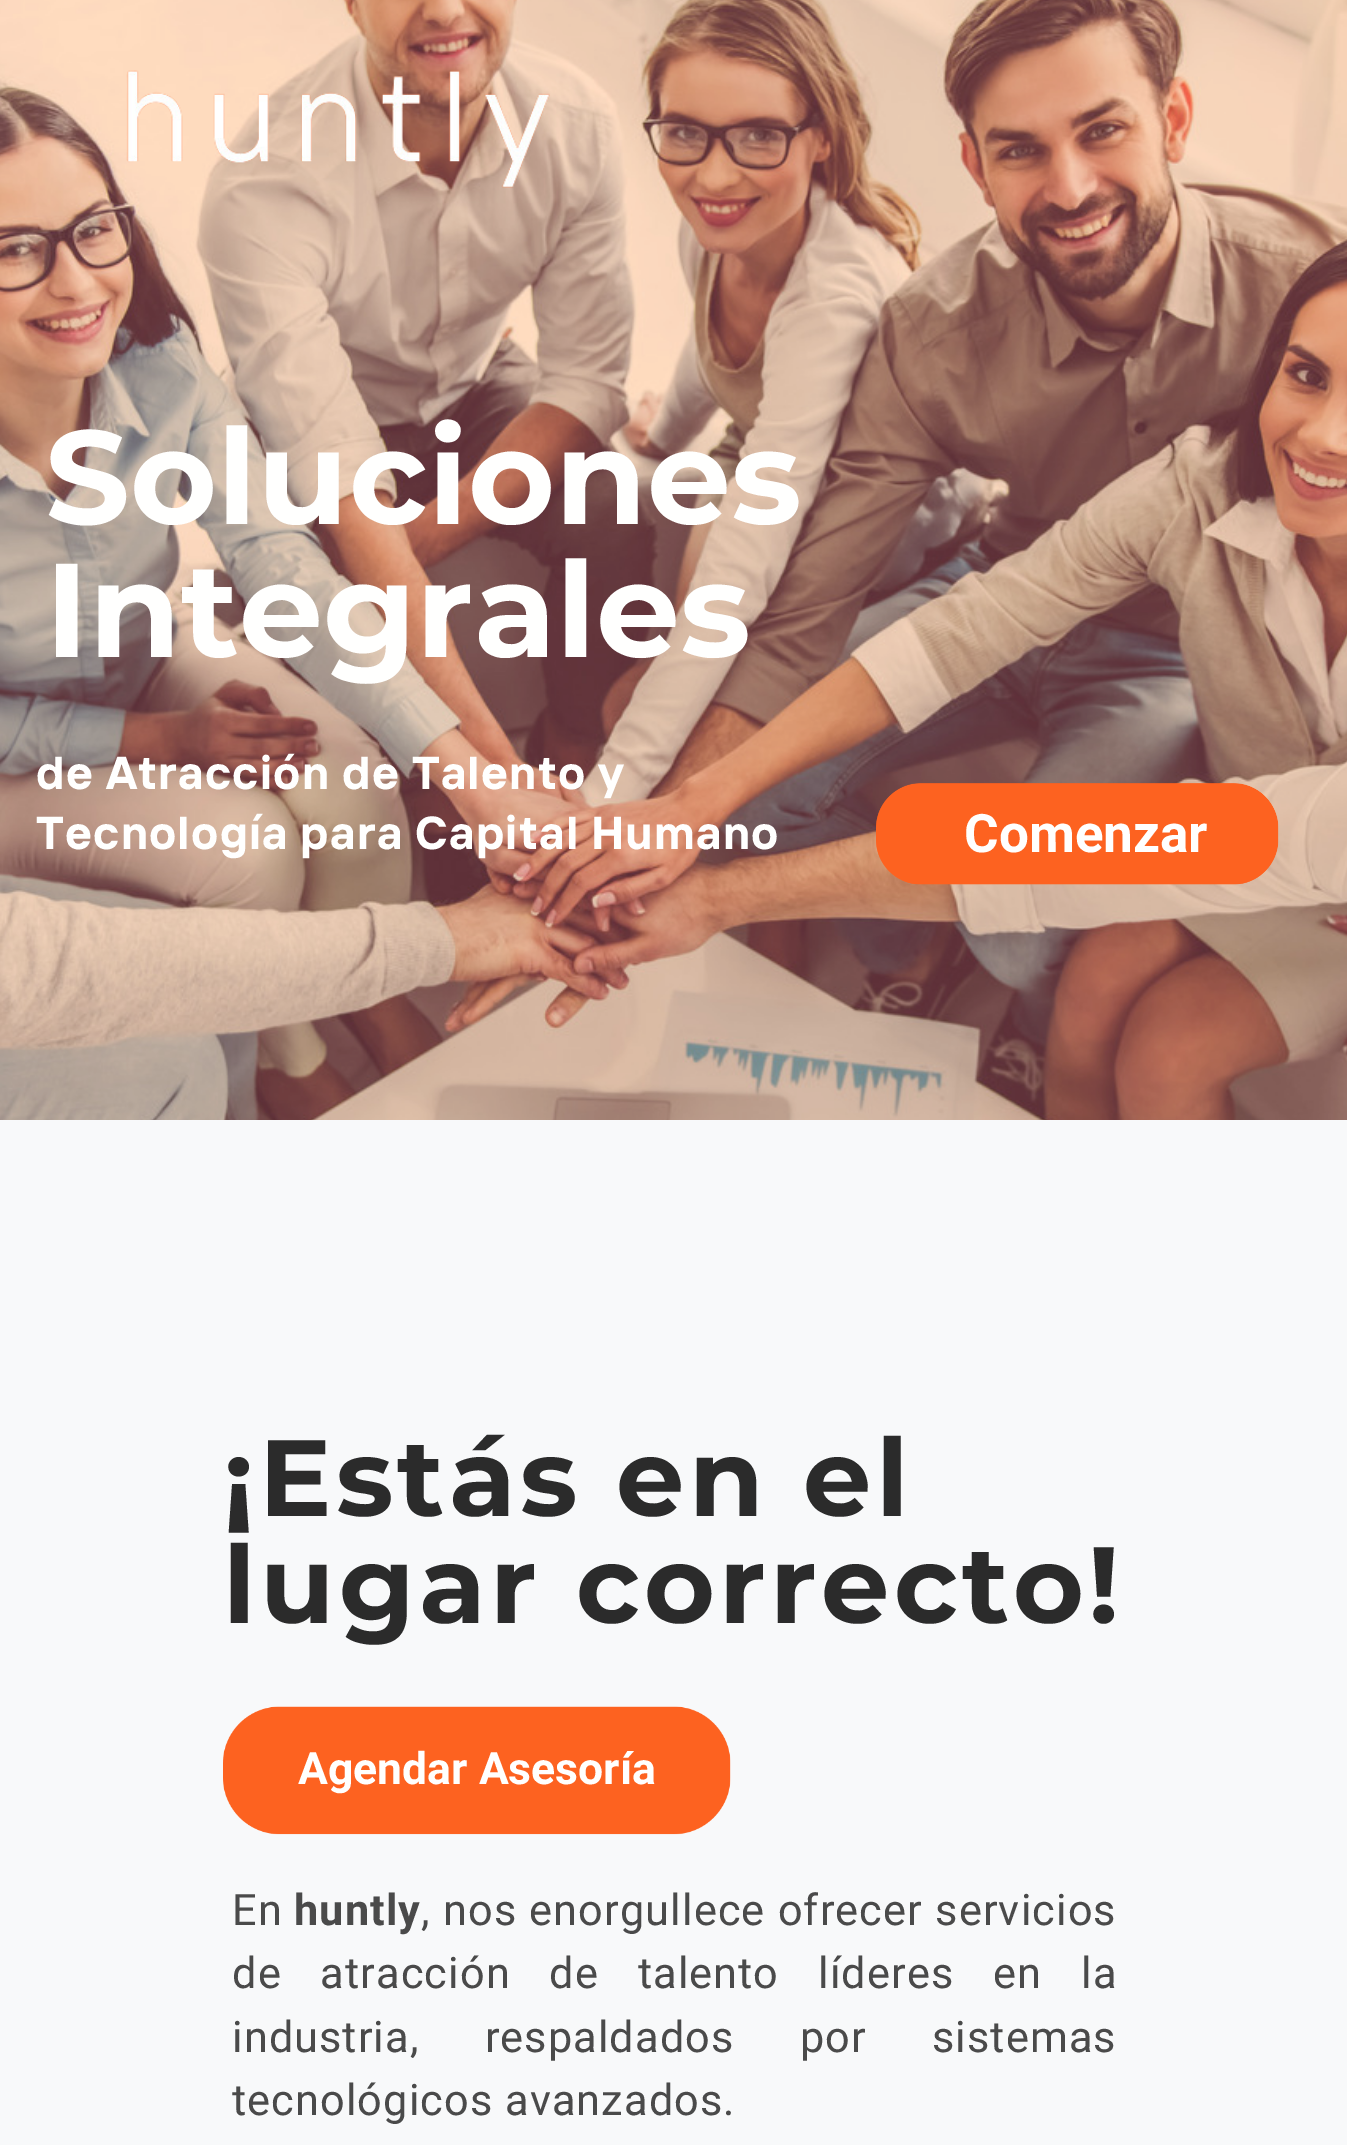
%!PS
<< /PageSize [1347 2145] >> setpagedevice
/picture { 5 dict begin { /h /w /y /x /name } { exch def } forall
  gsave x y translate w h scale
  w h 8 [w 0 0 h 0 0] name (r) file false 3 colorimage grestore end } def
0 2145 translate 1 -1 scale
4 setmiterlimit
1 setgray
0 0 1347 2145 rectfill
(img1.rgb) 0 0 1347 1120 picture
(img2.rgb) 126 70 424 118 picture
/Montserrat-Bold [133.25 0 0 -133.25 0 0] selectfont
1 1 0.996 setrgbcolor
45 524 moveto (Soluciones) show
45 657 moveto (Integrales) show
/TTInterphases-Bold [46.25 0 0 -46.25 0 0] selectfont
36 789 moveto 1.15 0 (de Atracción de Talento y) ashow
36 849 moveto 1.15 0 (Tecnología para Capital Humano) ashow
(img3.rgb) 876 783 403 102 picture
/Roboto-Bold [53 0 0 -53 0 0] selectfont
964 852 moveto (Comenzar) show
0.973 0.976 0.98 setrgbcolor
0 1120 1347 1025 rectfill
/Montserrat-Bold [108.25 0 0 -108.25 0 0] selectfont
0.169 setgray
223 1516 moveto 4.3 0 (¡Estás en el) ashow
223 1623 moveto 4.3 0 (lugar correcto!) ashow
(img4.rgb) 223 1706 508 129 picture
/Roboto-Bold [44.5 0 0 -44.5 0 0] selectfont
1 1 0.996 setrgbcolor
298 1784 moveto (Agendar Asesoría) show
/Roboto-Regular [43.3 0 0 -43.3 0 0] selectfont
0.29 setgray
232 1925 moveto 1.1 0 (En) ashow
/Roboto-Bold [43.3 0 0 -43.3 0 0] selectfont
294 1925 moveto 1.1 0 (huntly) ashow
/Roboto-Regular [43.3 0 0 -43.3 0 0] selectfont
421 1925 moveto 0.5 0 32 1.1 0 (, nos enorgullece ofrecer servicios) awidthshow
232 1988 moveto 27 0 32 1.1 0 (de atracción de talento líderes en la) awidthshow
232 2052 moveto 53.5 0 32 1.1 0 (industria, respaldados por sistemas) awidthshow
232 2115 moveto 1.1 0 (tecnológicos avanzados.) ashow
showpage
